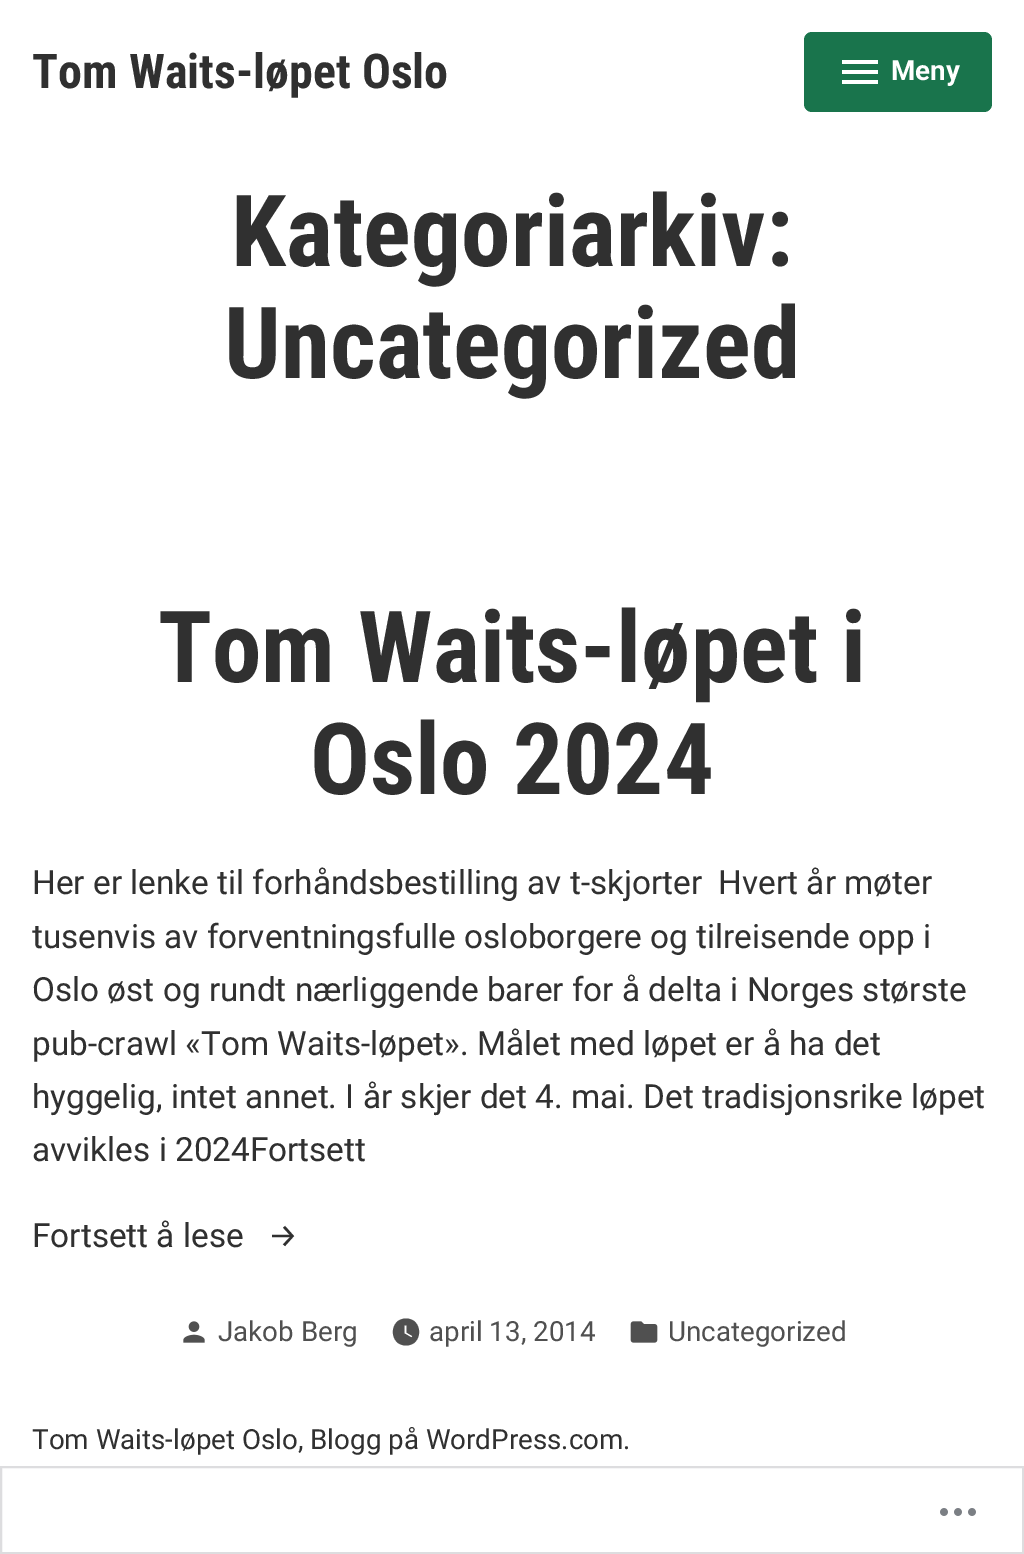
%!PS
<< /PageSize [1024 1554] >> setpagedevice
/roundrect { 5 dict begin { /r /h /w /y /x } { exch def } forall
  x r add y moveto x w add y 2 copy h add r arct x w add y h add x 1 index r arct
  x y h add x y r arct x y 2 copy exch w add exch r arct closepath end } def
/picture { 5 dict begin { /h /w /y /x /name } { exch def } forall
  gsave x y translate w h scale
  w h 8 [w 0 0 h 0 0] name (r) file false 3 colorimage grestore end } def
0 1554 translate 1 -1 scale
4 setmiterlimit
1 setgray
0 0 1024 1554 rectfill
/RobotoCondensed-Bold [48 0 0 -48 0 0] selectfont
0.188 setgray
32 88 moveto (Tom Waits-løpet Oslo) show
0.098 0.455 0.298 setrgbcolor
804 32 188 80 8 roundrect fill
1 setgray
newpath 842 84 moveto 878 84 lineto 878 80 lineto 842 80 lineto closepath 842 74 moveto 878 74 lineto 878 70 lineto 842 70 lineto closepath 842 60 moveto 842 64 lineto 878 64 lineto 878 60 lineto closepath fill
/Roboto-Bold [27.75 0 0 -27.75 0 0] selectfont
891 80 moveto (Meny) show
/RobotoCondensed-Bold [99.5 0 0 -99.5 0 0] selectfont
0.188 setgray
231 266 moveto (Kategoriarkiv:) show
224 378 moveto (Uncategorized) show
158 682 moveto (Tom Waits-løpet i) show
310 794 moveto (Oslo 2024) show
/Roboto-Regular [33.3 0 0 -33.3 0 0] selectfont
32 894 moveto (Her er lenke til forhåndsbestilling av t-skjorter  Hvert år møter) show
32 948 moveto (tusenvis av forventningsfulle osloborgere og tilreisende opp i) show
32 1001 moveto (Oslo øst og rundt nærliggende barer for å delta i Norges største) show
32 1055 moveto (pub-crawl «Tom Waits-løpet». Målet med løpet er å ha det) show
32 1108 moveto (hyggelig, intet annet. I år skjer det 4. mai. Det tradisjonsrike løpet) show
32 1161 moveto (avvikles i 2024Fortsett) show
32 1247 moveto (Fortsett å lese) show
/FiraSans-Regular [33.3 0 0 -33.3 0 0] selectfont
268 1247 moveto (→) show
(img1.rgb) 183 1321 22 22 picture
/Roboto-Regular [27.75 0 0 -27.75 0 0] selectfont
0.314 setgray
218 1341 moveto (Jakob Berg) show
newpath 406 1318.5 moveto 388.5 1318.5 388.5 1345.5 406 1345.5 curveto 423.5 1345.5 423.5 1318.5 406 1318.5 curveto closepath 411.5 1337.5 moveto 404.5 1333.5 lineto 404.5 1325.5 lineto 406.5 1325.5 lineto 406.5 1332.5 lineto 412.5 1336 lineto closepath fill
429 1341 moveto (april 13, 2014) show
(img2.rgb) 630 1321 28 22 picture
668 1341 moveto (Uncategorized) show
0.188 setgray
32 1449 moveto (Tom Waits-løpet Oslo, Blogg på WordPress.com.) show
0.867 0.867 0.875 setrgbcolor
2 setlinewidth
1 1467 1022 86 rectstroke
(img3.rgb) 940 1508 36 8 picture
showpage
